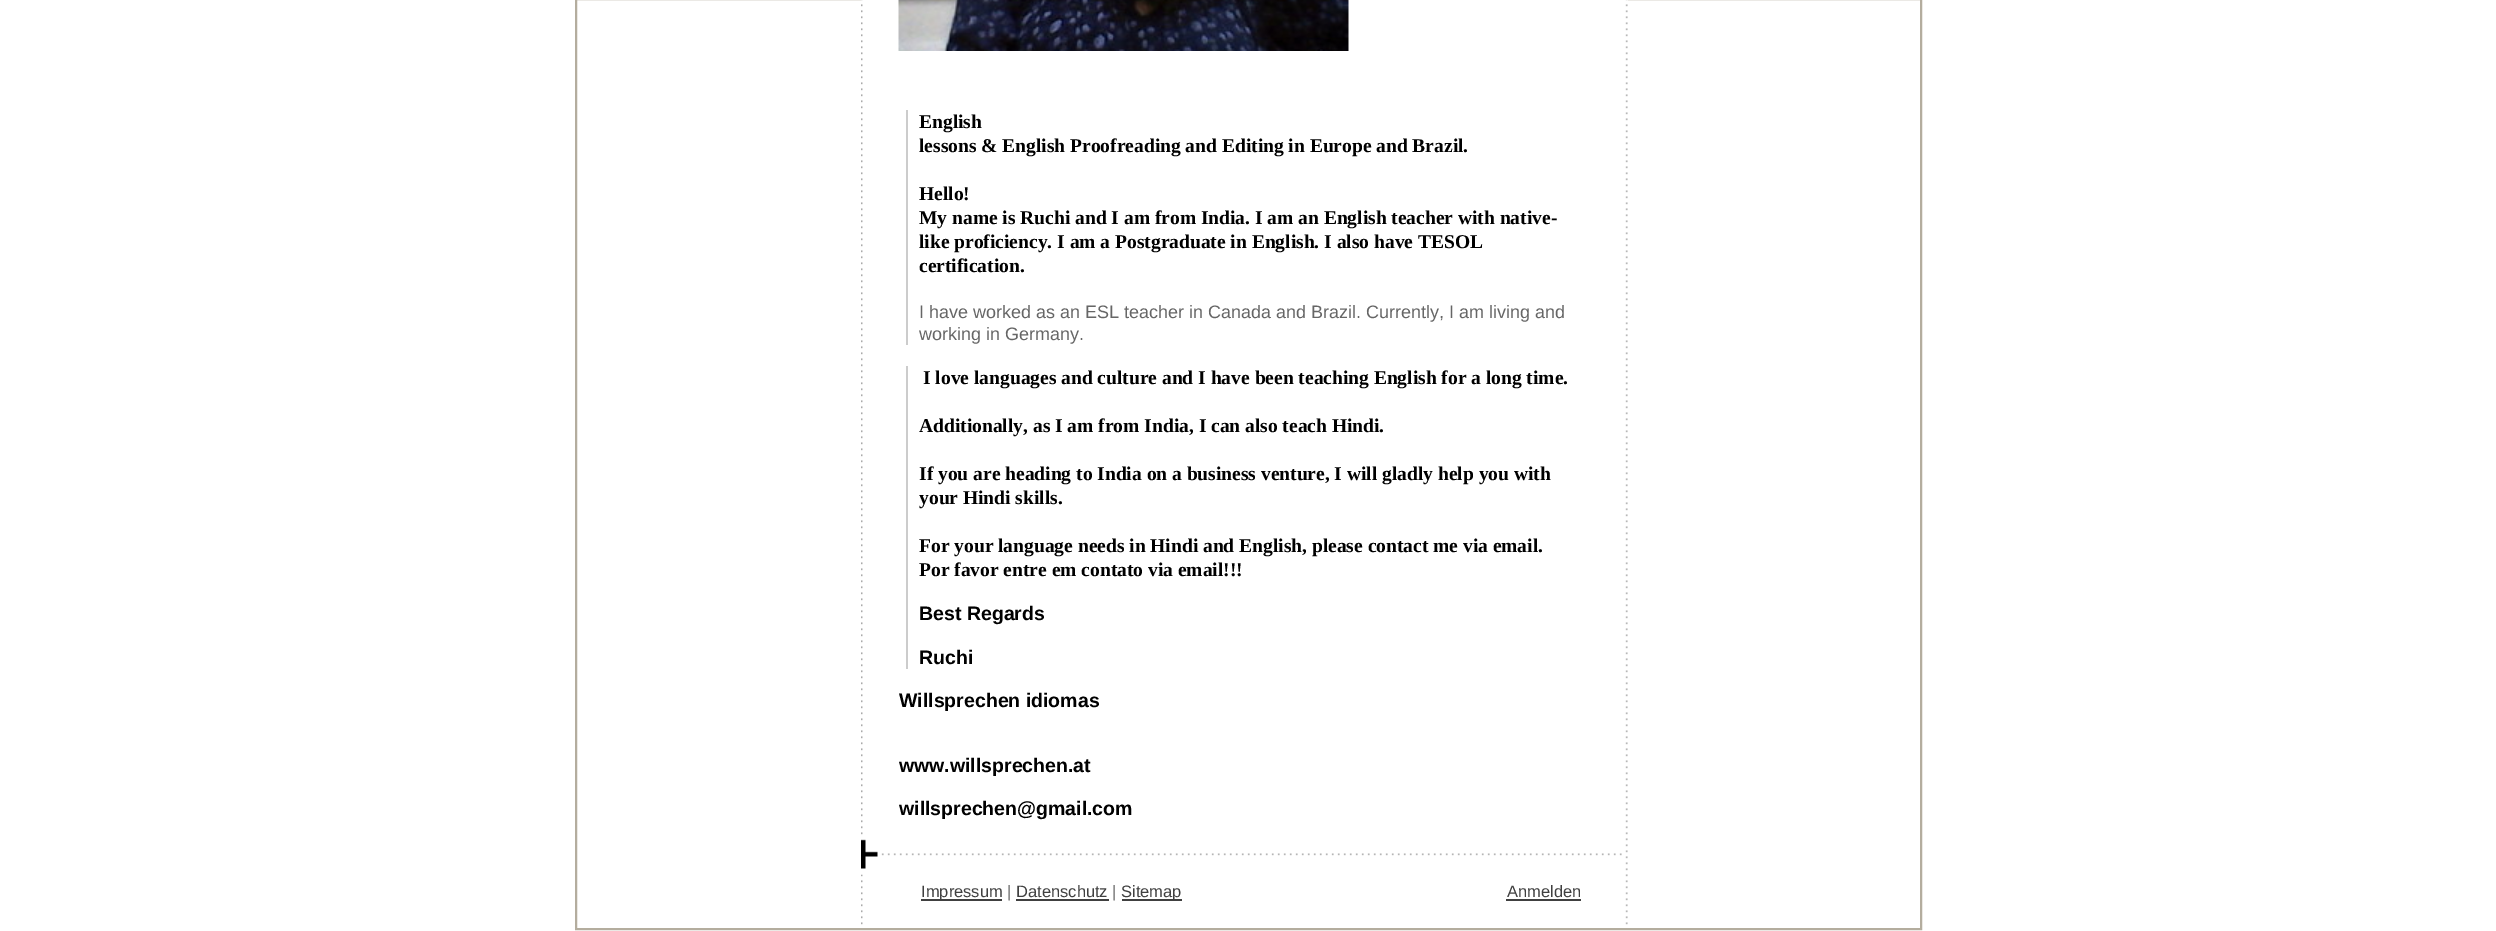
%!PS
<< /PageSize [2496 931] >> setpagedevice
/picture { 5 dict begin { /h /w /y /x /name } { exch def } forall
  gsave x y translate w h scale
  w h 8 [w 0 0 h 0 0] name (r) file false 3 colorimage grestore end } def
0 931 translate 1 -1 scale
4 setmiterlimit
1 setgray
0 0 2496 931 rectfill
0.706 0.678 0.62 setrgbcolor
2 setlinewidth
576 -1 1345 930 rectstroke
(img1.rgb) 861 0 767 925 picture
(img2.rgb) 898 0 451 51 picture
0.8 setgray
906 110 2 235 rectfill
/LiberationSerif-Bold [19.5 0 0 -19.5 0 0] selectfont
0 setgray
919 128 moveto (English) show
919 152 moveto (lessons & English Proofreading and Editing in Europe and Brazil.) show
919 200 moveto (Hello!) show
919 224 moveto (My name is Ruchi and I am from India. I am an English teacher with native-) show
919 248 moveto (like proficiency. I am a Postgraduate in English. I also have TESOL) show
919 272 moveto (certification.) show
/LiberationSans-Regular [18 0 0 -18 0 0] selectfont
0.4 setgray
919 318 moveto (I have worked as an ESL teacher in Canada and Brazil. Currently, I am living and) show
919 340 moveto (working in Germany.) show
0.8 setgray
906 366 2 303 rectfill
/LiberationSerif-Bold [19.5 0 0 -19.5 0 0] selectfont
0 setgray
923 384 moveto (I love languages and culture and I have been teaching English for a long time.) show
919 432 moveto (Additionally, as I am from India, I can also teach Hindi.) show
919 480 moveto (If you are heading to India on a business venture, I will gladly help you with) show
919 504 moveto (your Hindi skills.) show
919 552 moveto (For your language needs in Hindi and English, please contact me via email.) show
919 576 moveto (Por favor entre em contato via email!!!) show
/LiberationSans-Bold [19.5 0 0 -19.5 0 0] selectfont
919 620 moveto (Best Regards) show
919 664 moveto (Ruchi) show
899 707 moveto (Willsprechen idiomas) show
899 772 moveto (www.willsprechen.at) show
899 815 moveto (willsprechen@gmail.com) show
(img3.rgb) 861 838 761 37 picture
0.251 setgray
921 899 81 2 rectfill
/LiberationSans-Regular [16.5 0 0 -16.5 0 0] selectfont
921 897 moveto (Impressum) show
0.4 setgray
1007 897 moveto (|) show
0.251 setgray
1016 897 moveto (Datenschutz) show
1016 899 93 2 rectfill
0.4 setgray
1112 897 moveto (|) show
0.251 setgray
1122 899 60 2 rectfill
1121 897 moveto (Sitemap) show
1507 897 moveto (Anmelden) show
1506 899 75 2 rectfill
showpage
